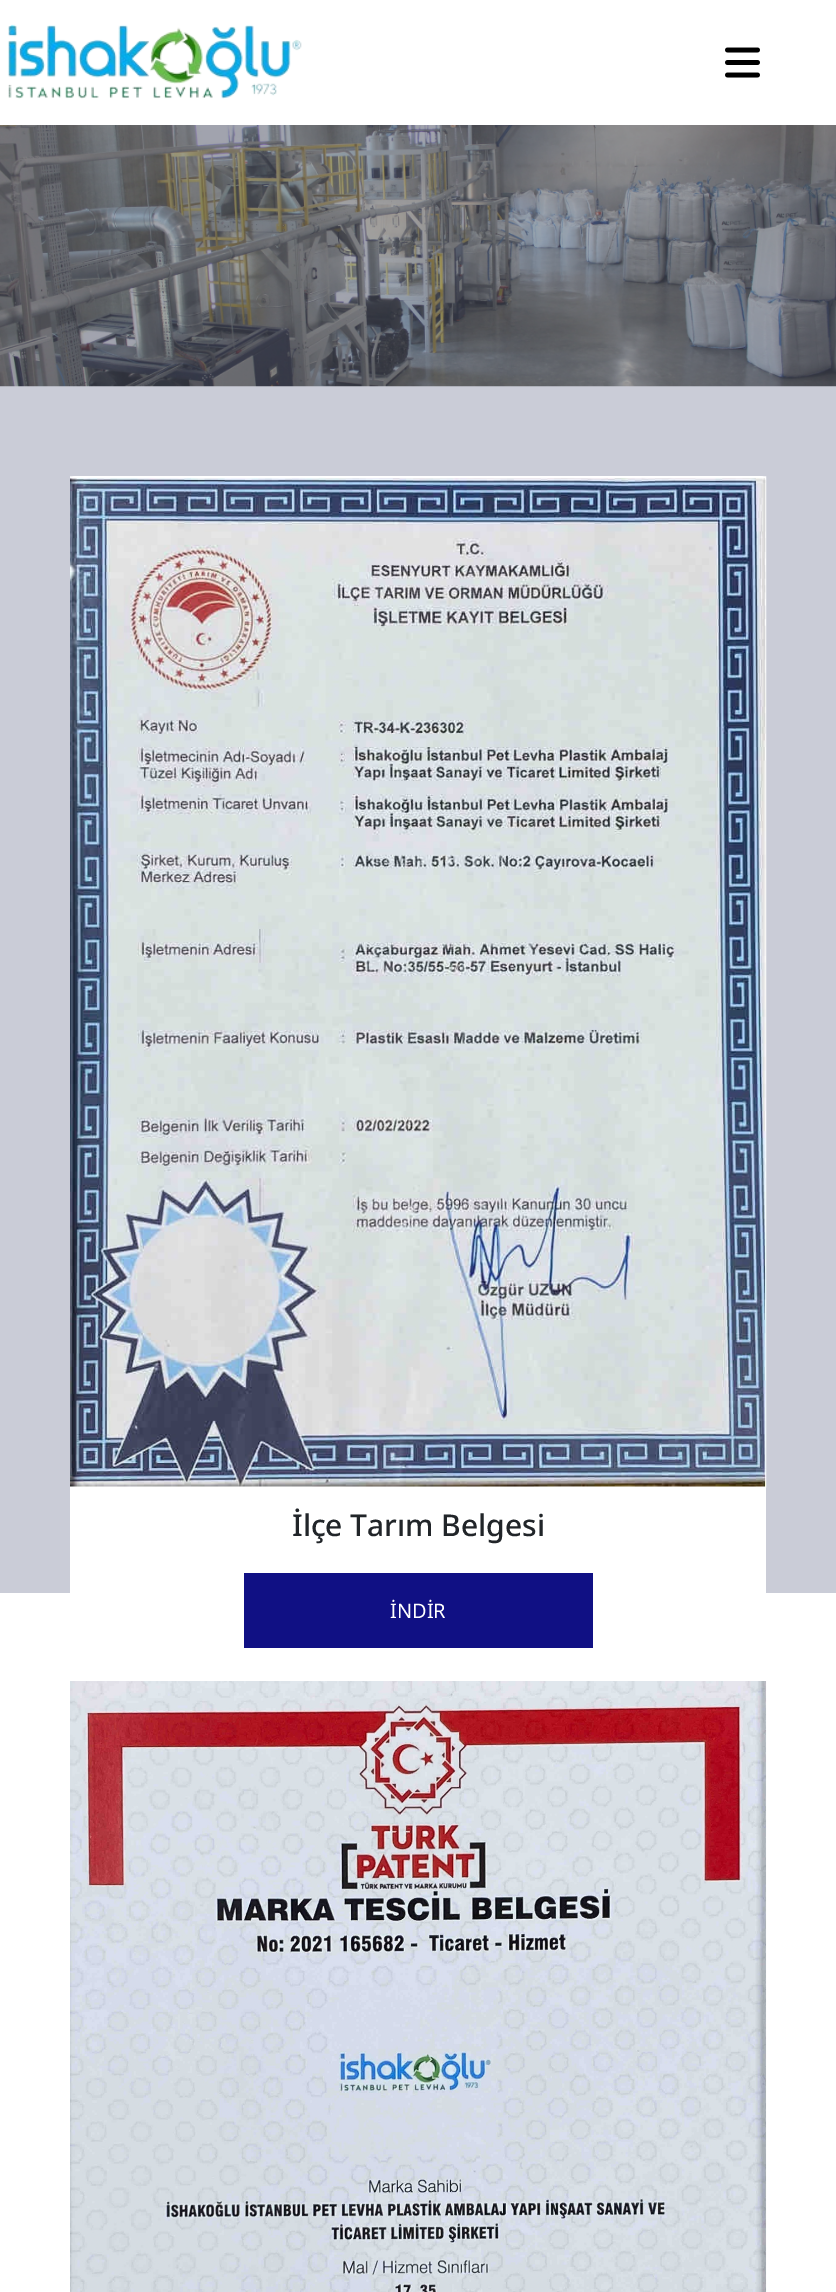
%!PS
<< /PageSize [836 2292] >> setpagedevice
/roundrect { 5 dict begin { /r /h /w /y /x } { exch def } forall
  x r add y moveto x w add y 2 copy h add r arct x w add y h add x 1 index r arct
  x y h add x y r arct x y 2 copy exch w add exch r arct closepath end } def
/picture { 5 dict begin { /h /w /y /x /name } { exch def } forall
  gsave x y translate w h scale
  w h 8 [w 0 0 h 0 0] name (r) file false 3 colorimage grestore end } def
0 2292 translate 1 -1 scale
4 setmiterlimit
1 setgray
0 0 836 2292 rectfill
0.792 0.8 0.843 setrgbcolor
0 386 836 1207 rectfill
(img1.rgb) 7 24 295 75 picture
(img2.rgb) 725 47 35 31 picture
(img3.rgb) 0 125 836 262 picture
1 setgray
70 476 696 1172 5 roundrect fill
(img4.rgb) 70 476 697 1012 picture
/NotoSans-Medium [30 0 0 -30 0 0] selectfont
0.129 0.145 0.161 setrgbcolor
292 1536 moveto (İlçe Tarım Belgesi) show
0.063 0.063 0.518 setrgbcolor
244 1573 349 75 rectfill
/NotoSans-Regular [20 0 0 -20 0 0] selectfont
1 setgray
390 1618 moveto (İNDİR) show
(img5.rgb) 70 1681 697 611 picture
showpage
